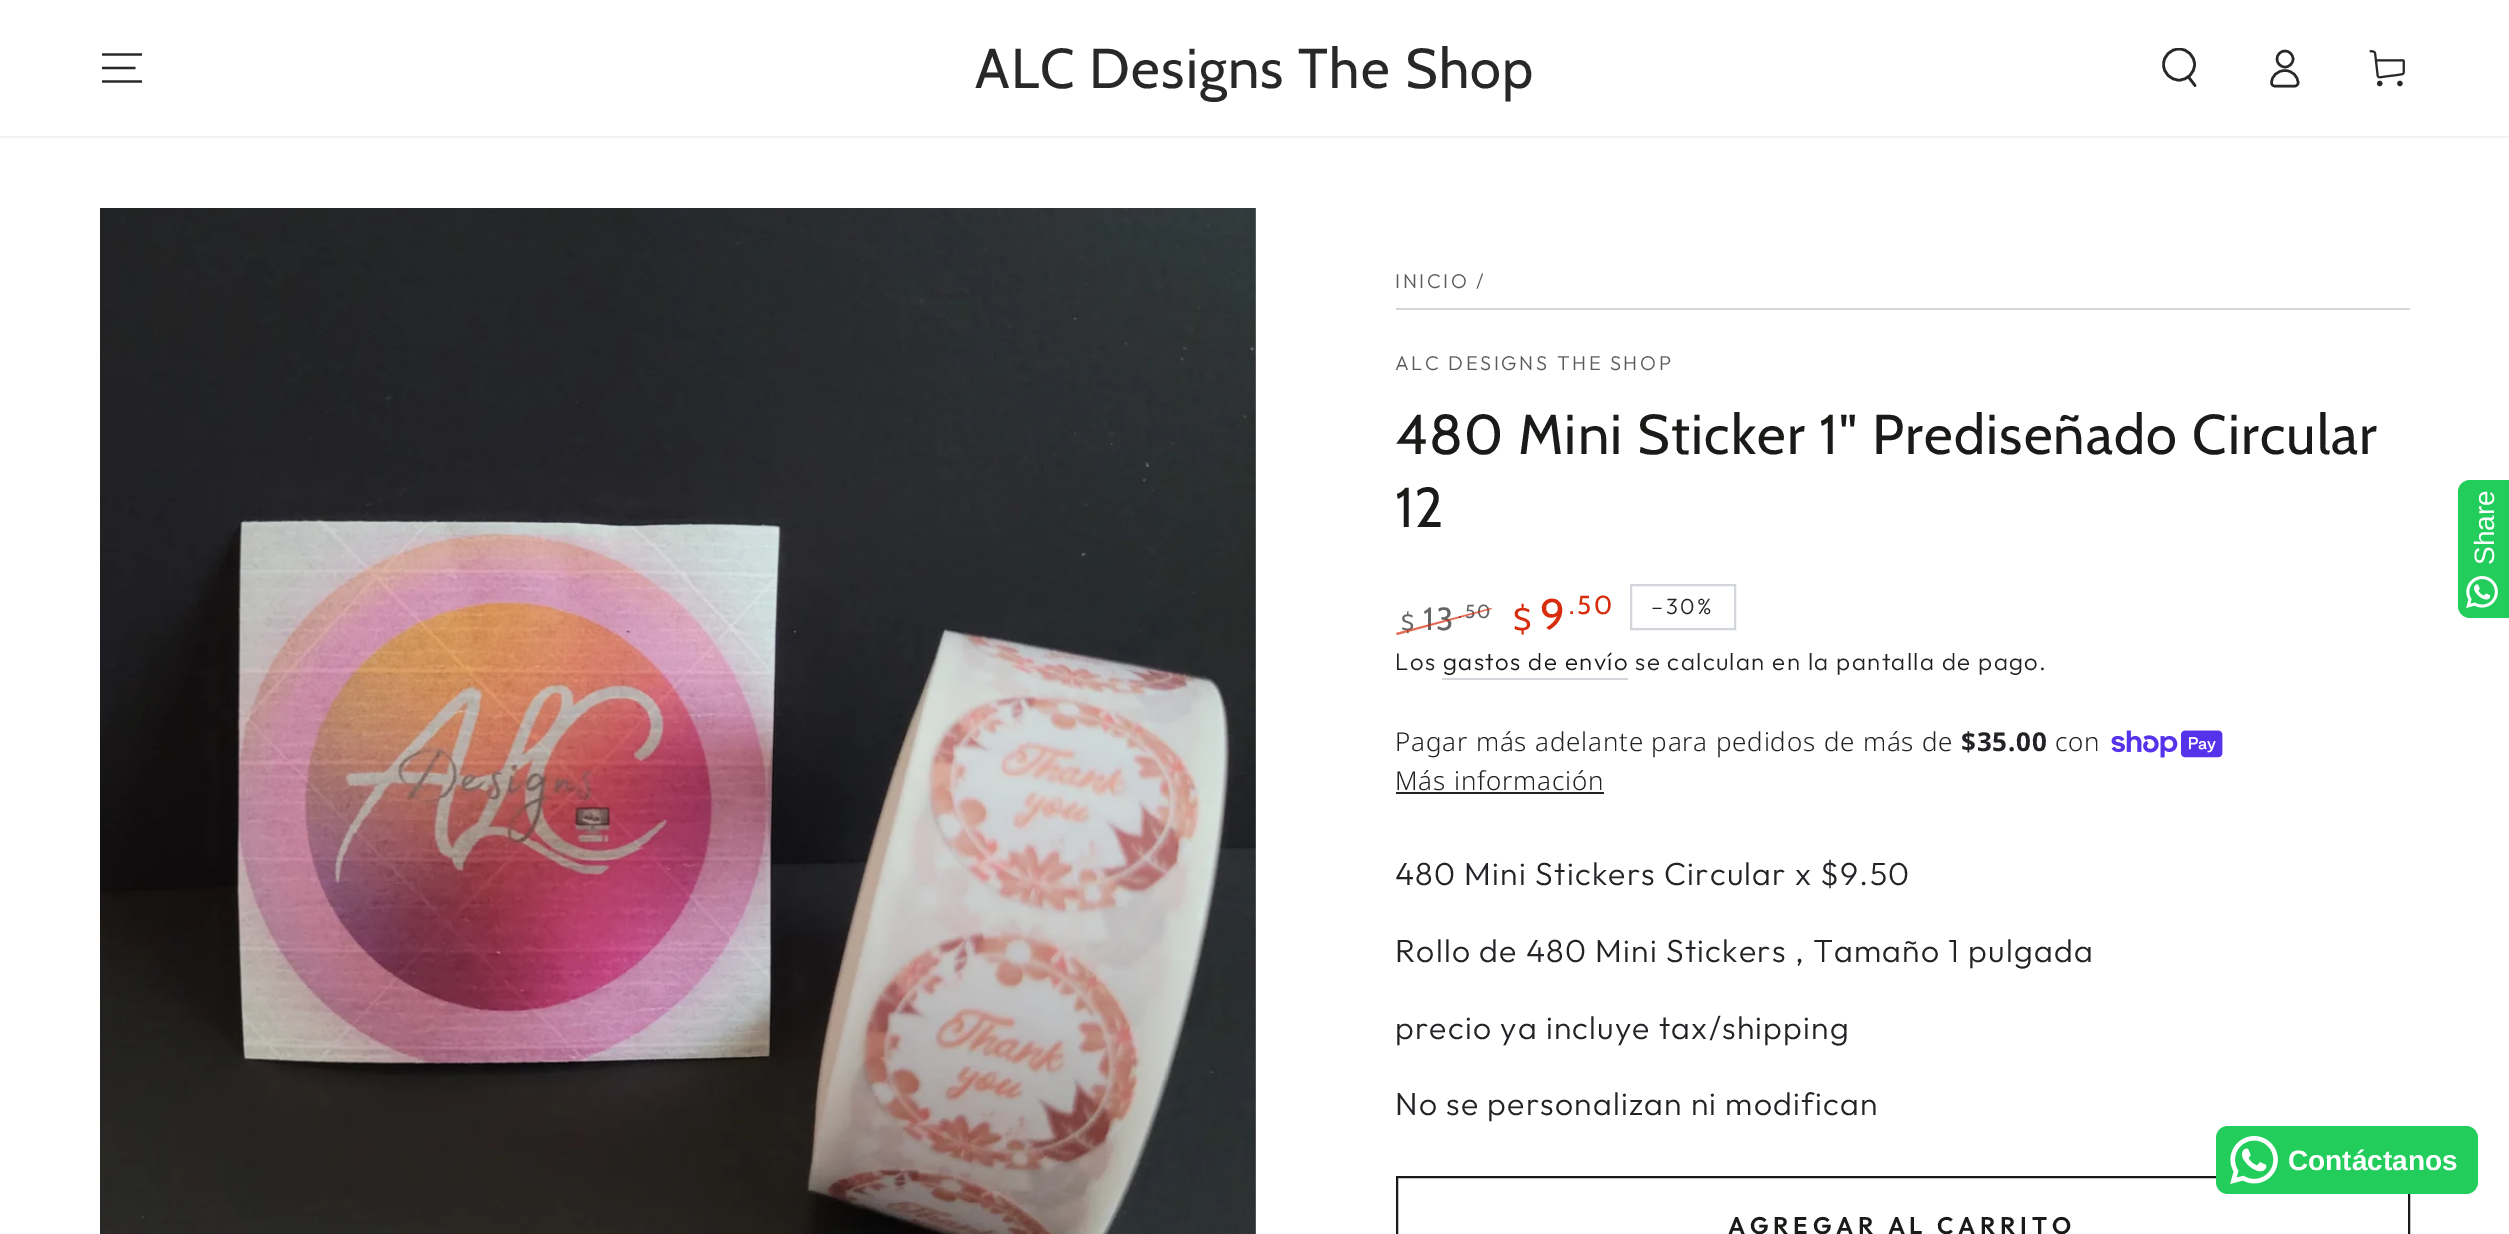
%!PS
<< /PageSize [2509 1234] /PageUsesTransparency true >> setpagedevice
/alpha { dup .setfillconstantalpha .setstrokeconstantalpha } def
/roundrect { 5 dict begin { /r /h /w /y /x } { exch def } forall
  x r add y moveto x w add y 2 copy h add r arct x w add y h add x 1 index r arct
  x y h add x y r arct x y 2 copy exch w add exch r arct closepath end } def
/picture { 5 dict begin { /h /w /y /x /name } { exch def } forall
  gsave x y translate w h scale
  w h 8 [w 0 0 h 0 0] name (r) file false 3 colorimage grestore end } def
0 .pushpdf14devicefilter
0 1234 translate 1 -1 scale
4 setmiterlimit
1 setgray
0 0 2509 1234 rectfill
0.949 0.949 0.957 setrgbcolor
0 136 2509 2 rectfill
0.157 setgray
2.2 setlinewidth
newpath 102 81.5 moveto 142 81.5 lineto 102 68 moveto 135.5 68 lineto 102 54.5 moveto 142 54.5 lineto stroke
/Cabin-Regular [56 0 0 -56 0 0] selectfont
975 88 moveto 1.2 0 (ALC Designs The Shop) ashow
gsave
2160 48 40 40 rectclip
2.6 setlinewidth
newpath 2179 64.5 15.5 0 360 arc closepath stroke
grestore
2.6 setlinewidth
1 setlinecap
newpath 2188.5 77 moveto 2195 85.5 lineto stroke
2.4 setlinewidth
0 setlinecap
newpath 2285 70.5 moveto 2277.5 70.5 2271.5 76 2271.5 83 curveto 2271.5 84.5 2273 86 2274.5 86 curveto 2295 86 lineto 2296.5 86 2298 84.5 2298 83 curveto 2298 76 2292 70.5 2285 70.5 curveto closepath stroke
newpath 2285 59 8 0 360 arc closepath stroke
(img1.rgb) 2369 50 36 37 picture
(img2.rgb) 100 208 1156 1026 picture
0.824 0.835 0.851 setrgbcolor
1396 308 1014 2 rectfill
/Outfit-Light [20 0 0 -20 0 0] selectfont
0.349 0.353 0.361 setrgbcolor
1395 288 moveto 2.6 0 (INICIO) ashow
1476 288 moveto 2.6 0 (/) ashow
1395 370 moveto 2.6 0 (ALC DESIGNS THE SHOP) ashow
/Cabin-Regular [56 0 0 -56 0 0] selectfont
0.102 0.106 0.094 setrgbcolor
1395 454 moveto 1.2 0 (480 Mini Sticker 1" Prediseñado Circular) ashow
1395 527 moveto 1.2 0 (12) ashow
/Cabin-Regular [32 0 0 -32 0 0] selectfont
0.392 0.396 0.404 setrgbcolor
1423 630 moveto 2.6 0 (13) ashow
/Cabin-Regular [19 0 0 -19 0 0] selectfont
1458 618 moveto 2.6 0 (.50) ashow
/Cabin-Regular [22 0 0 -22 0 0] selectfont
1401 630 moveto 2.6 0 ($) ashow
0.7 alpha
0.843 0.173 0.051 setrgbcolor
newpath 1396 633 moveto 1491 608 lineto 1492 609 lineto 1397 635 lineto closepath fill
/Cabin-Regular [31 0 0 -31 0 0] selectfont
1 alpha
1513 630 moveto 2.6 0 ($) ashow
/Cabin-Regular [44 0 0 -44 0 0] selectfont
1540 630 moveto 2.6 0 (9) ashow
/Cabin-Regular [26 0 0 -26 0 0] selectfont
1569 614 moveto 2.6 0 (.50) ashow
0.824 0.835 0.851 setrgbcolor
2 setlinewidth
1631 585 104 44 rectstroke
/Outfit-Light [22 0 0 -22 0 0] selectfont
0.129 0.137 0.149 setrgbcolor
1651 614 moveto 2.6 0 (–30%) ashow
/Outfit-Light [24 0 0 -24 0 0] selectfont
1395 670 moveto 1.4 0 (Los) ashow
0.102 0.106 0.094 setrgbcolor
1443 670 moveto 1.4 0 (gastos de envío) ashow
0.824 0.835 0.851 setrgbcolor
1442 678 186 2 rectfill
0.129 0.137 0.149 setrgbcolor
1635 670 moveto 1.4 0 (se calculan en la pantalla de pago.) ashow
/NotoSans-Light [26 0 0 -26 0 0] selectfont
1395 751 moveto 0.8 0 (Pagar más adelante para pedidos de más de) ashow
/NotoSans-Bold [26 0 0 -26 0 0] selectfont
1961 751 moveto 0.8 0 ($35.00) ashow
/NotoSans-Light [26 0 0 -26 0 0] selectfont
2055 751 moveto 0.8 0 (con) ashow
(img3.rgb) 2111 730 112 28 picture
1395 790 moveto 0.8 0 (Más información) ashow
1396 792 208 2 rectfill
/Outfit-Light [32 0 0 -32 0 0] selectfont
1395 885 moveto 1.2 0 (480 Mini Stickers Circular x $9.50) ashow
1395 962 moveto 1.2 0 (Rollo de 480 Mini Stickers , Tamaño 1 pulgada) ashow
1395 1039 moveto 1.2 0 (precio ya incluye tax/shipping) ashow
1395 1115 moveto 1.2 0 (No se personalizan ni modifican) ashow
0.102 0.106 0.094 setrgbcolor
1397 1177 1012 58 rectstroke
/Outfit-SemiBold [24 0 0 -24 0 0] selectfont
1728 1234 moveto 4.75 0 (AGREGAR AL CARRITO) ashow
0.133 0.804 0.357 setrgbcolor
newpath 2470 480 moveto 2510 480 lineto 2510 618 lineto 2470 618 lineto 2463.5 618 2458 612.5 2458 606 curveto 2458 492 lineto 2458 485.5 2463.5 480 2470 480 curveto closepath fill
/LiberationSans-Regular [28 0 0 -28 0 0] selectfont
1 setgray
gsave 2494 565 translate -90 rotate 0 0 moveto (Share) show grestore
(img4.rgb) 2466 576 32 32 picture
0.133 0.804 0.357 setrgbcolor
2216 1126 262 68 12 roundrect fill
(img5.rgb) 2230 1136 48 48 picture
/LiberationSans-Bold [28 0 0 -28 0 0] selectfont
1 setgray
2288 1170 moveto (Contáctanos) show
.poppdf14devicefilter showpage
